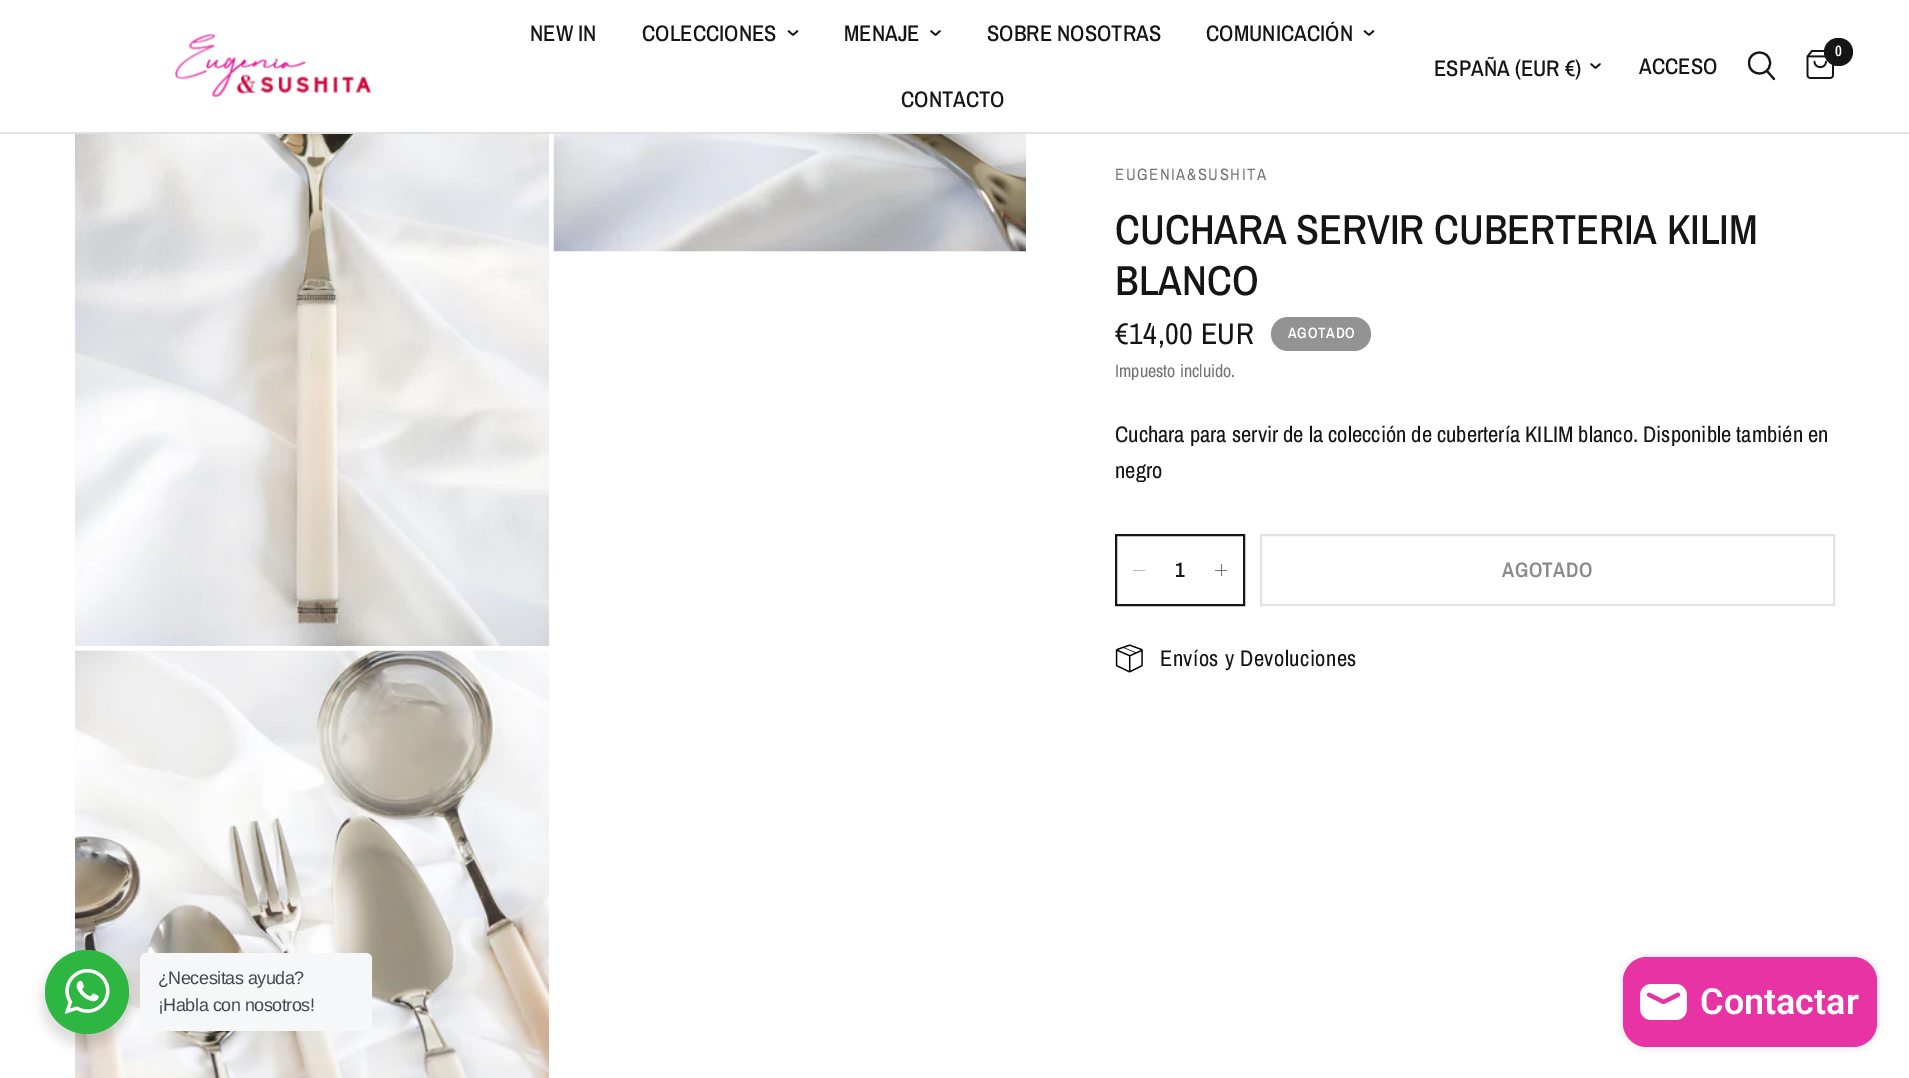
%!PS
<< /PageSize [1909 1078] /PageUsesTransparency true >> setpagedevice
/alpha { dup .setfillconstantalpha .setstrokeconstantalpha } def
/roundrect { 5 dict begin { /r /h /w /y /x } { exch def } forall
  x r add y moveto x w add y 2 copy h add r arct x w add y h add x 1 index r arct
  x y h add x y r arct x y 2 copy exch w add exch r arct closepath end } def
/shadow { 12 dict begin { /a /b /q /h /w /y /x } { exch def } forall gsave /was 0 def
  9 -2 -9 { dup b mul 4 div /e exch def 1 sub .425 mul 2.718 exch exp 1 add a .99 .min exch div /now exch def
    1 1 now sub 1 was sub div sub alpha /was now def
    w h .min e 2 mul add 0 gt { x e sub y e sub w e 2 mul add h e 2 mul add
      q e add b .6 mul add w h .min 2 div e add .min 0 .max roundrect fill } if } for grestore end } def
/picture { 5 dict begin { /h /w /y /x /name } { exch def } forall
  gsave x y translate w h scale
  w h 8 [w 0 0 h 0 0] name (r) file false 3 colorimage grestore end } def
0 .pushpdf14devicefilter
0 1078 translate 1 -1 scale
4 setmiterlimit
1 setgray
0 0 1909 1078 rectfill
0.886 setgray
0 132 1909 2 rectfill
(img1.rgb) 175 33 197 64 picture
/ArchivoNarrow-Medium [22.5 0 0 -22.5 0 0] selectfont
0.082 setgray
530 41 moveto (NEW IN) show
642 41 moveto (COLECCIONES) show
1.7 setlinewidth
1 setlinecap
1 setlinejoin
newpath 797.5 31 moveto 793 35 lineto 788.5 31 lineto stroke
844 41 moveto (MENAJE) show
newpath 940 31 moveto 935.5 35 lineto 931 31 lineto stroke
987 41 moveto (SOBRE NOSOTRAS) show
1206 41 moveto (COMUNICACIÓN) show
newpath 1373.5 31 moveto 1369 35 lineto 1364.5 31 lineto stroke
901 107 moveto (CONTACTO) show
1434 76 moveto (ESPAÑA \(EUR €\)) show
newpath 1600 64 moveto 1595.5 68 lineto 1591 64 lineto stroke
1639 74 moveto (ACCESO) show
2.1 setlinewidth
newpath 1767 71 moveto 1774 79 lineto 1770 63 moveto 1770 77 1749 77 1749 63 curveto 1749 49 1770 49 1770 63 curveto closepath stroke
(img2.rgb) 1806 50 28 29 picture
1824 38 29 28 14 roundrect fill
/ArchivoNarrow-SemiBold [15 0 0 -15 0 0] selectfont
1 setgray
1835 56 moveto (0) show
(img3.rgb) 75 134 474 512 picture
(img4.rgb) 553 134 473 118 picture
(img5.rgb) 75 650 474 428 picture
/ArchivoNarrow-Regular [16.5 0 0 -16.5 0 0] selectfont
0.451 setgray
1115 180 moveto 1.6 0 (EUGENIA&SUSHITA) ashow
/ArchivoNarrow-Medium [42 0 0 -42 0 0] selectfont
0.082 setgray
1115 244 moveto (CUCHARA SERVIR CUBERTERIA KILIM) show
1115 295 moveto (BLANCO) show
/ArchivoNarrow-Regular [30 0 0 -30 0 0] selectfont
1115 344 moveto 0.5 0 (€14,00 EUR) ashow
0.576 setgray
1271 317 100 34 17 roundrect fill
/ArchivoNarrow-SemiBold [15 0 0 -15 0 0] selectfont
1 setgray
1288 338 moveto 0.75 0 (AGOTADO) ashow
/ArchivoNarrow-Regular [18 0 0 -18 0 0] selectfont
0.451 setgray
1115 377 moveto (Impuesto incluido.) show
/ArchivoNarrow-Regular [22.5 0 0 -22.5 0 0] selectfont
0.082 setgray
1115 442 moveto (Cuchara para servir de la colección de cubertería KILIM blanco. Disponible también en) show
1115 478 moveto (negro) show
2 setlinewidth
0 setlinecap
0 setlinejoin
1116 535 128 70 rectstroke
0.725 setgray
1133 570 12 1 rectfill
/ArchivoNarrow-SemiBold [21 0 0 -21 0 0] selectfont
0.082 setgray
1175 577 moveto (1) show
0.451 setgray
1221 564 1 12 rectfill
1215 570 12 1 rectfill
0.886 setgray
1261 535 573 70 rectstroke
0.541 setgray
1502 577 moveto 0.5 0 (AGOTADO) ashow
(img6.rgb) 1115 644 28 29 picture
/ArchivoNarrow-Regular [22.5 0 0 -22.5 0 0] selectfont
0.082 setgray
1160 666 moveto 0.45 0 (Envíos y Devoluciones) ashow
0 setgray
42 956 90 90 45 6 0.14 shadow
0.176 0.718 0.259 setrgbcolor
newpath 87 992 42 0 360 arc closepath fill
(img7.rgb) 65 969 45 45 picture
0.961 0.969 0.976 setrgbcolor
140 953 232 78 6 roundrect fill
/LiberationSans-Regular [18 0 0 -18 0 0] selectfont
0.263 0.278 0.306 setrgbcolor
158 984 moveto -0.5 0 (¿Necesitas ayuda?) ashow
158 1011 moveto -0.5 0 (¡Habla con nosotros!) ashow
0 setgray
1623 957 254 90 24 4 0.15 shadow
0.91 0.2 0.643 setrgbcolor
1623 957 254 90 24 roundrect fill
(img8.rgb) 1640 984 47 36 picture
/Roboto-SemiBold [36 0 0 -36 0 0] selectfont
1 setgray
1700 1014 moveto (Contactar) show
.poppdf14devicefilter showpage
